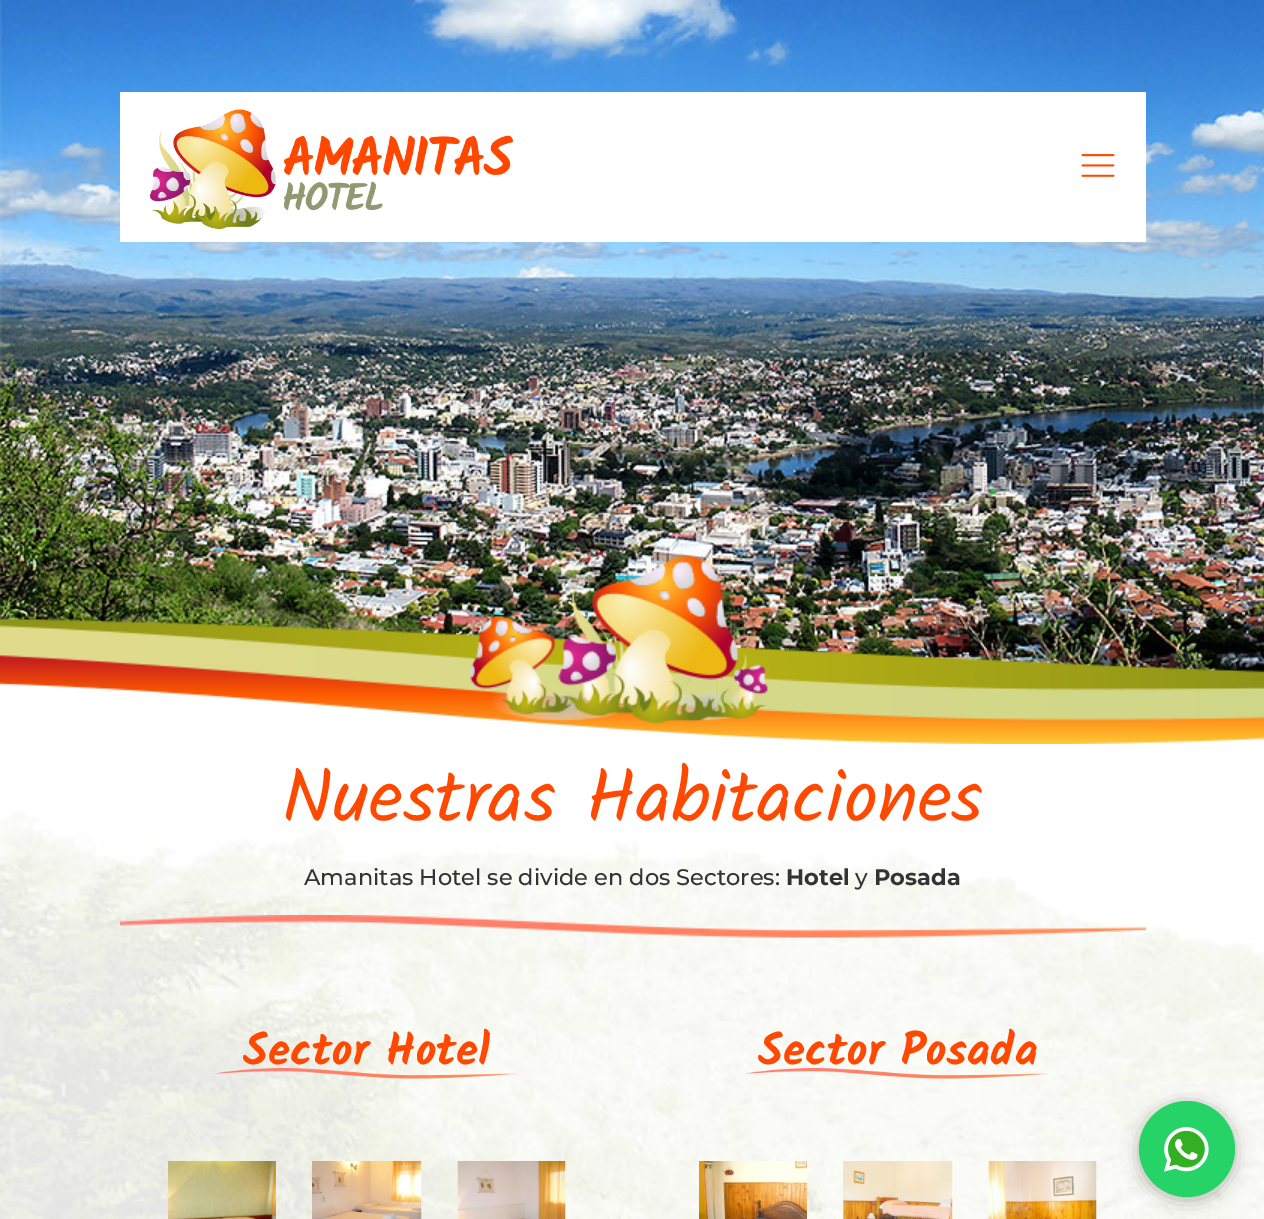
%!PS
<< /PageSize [1264 1219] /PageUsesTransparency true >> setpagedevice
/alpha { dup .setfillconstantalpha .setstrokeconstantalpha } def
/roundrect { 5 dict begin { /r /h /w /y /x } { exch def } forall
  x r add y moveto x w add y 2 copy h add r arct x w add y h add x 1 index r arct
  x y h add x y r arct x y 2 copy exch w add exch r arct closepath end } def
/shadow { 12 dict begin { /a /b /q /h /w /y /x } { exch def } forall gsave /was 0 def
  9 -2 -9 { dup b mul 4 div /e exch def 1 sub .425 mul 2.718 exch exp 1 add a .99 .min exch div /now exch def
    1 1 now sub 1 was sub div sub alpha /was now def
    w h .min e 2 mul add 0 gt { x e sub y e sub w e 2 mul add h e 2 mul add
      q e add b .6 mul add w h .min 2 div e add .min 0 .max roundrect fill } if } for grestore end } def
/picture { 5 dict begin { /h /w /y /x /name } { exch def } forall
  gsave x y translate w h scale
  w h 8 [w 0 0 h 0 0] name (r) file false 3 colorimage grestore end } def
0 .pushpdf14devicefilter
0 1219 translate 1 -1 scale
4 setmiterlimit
1 setgray
0 0 1264 1219 rectfill
(img1.rgb) 0 0 1264 673 picture
120 92 1026 150 rectfill
(img2.rgb) 150 109 363 120 picture
(img3.rgb) 1081 154 34 23 picture
(img4.rgb) 0 812 1264 407 picture
(img5.rgb) 0 556 1264 188 picture
(img6.rgb) 120 915 1026 23 picture
/Kalam-Regular [75 0 0 -75 0 0] selectfont
1 0.282 0 setrgbcolor
282 822 moveto (Nuestras Habitaciones) show
/Montserrat-Medium [22.5 0 0 -22.5 0 0] selectfont
0.2 setgray
304 885 moveto (Amanitas Hotel se divide en dos Sectores:) show
/Montserrat-Bold [22.5 0 0 -22.5 0 0] selectfont
786 885 moveto (Hotel) show
/Montserrat-Medium [22.5 0 0 -22.5 0 0] selectfont
855 885 moveto (y) show
/Montserrat-Bold [22.5 0 0 -22.5 0 0] selectfont
874 885 moveto (Posada) show
(img7.rgb) 214 1068 305 11 picture
/Kalam-Bold [45 0 0 -45 0 0] selectfont
1 0.282 0 setrgbcolor
243 1065 moveto (Sector Hotel) show
(img8.rgb) 168 1161 108 58 picture
(img9.rgb) 312 1161 110 58 picture
(img10.rgb) 457 1161 109 58 picture
(img11.rgb) 745 1068 305 11 picture
758 1065 moveto (Sector Posada) show
(img12.rgb) 699 1161 108 58 picture
(img13.rgb) 843 1161 110 58 picture
(img14.rgb) 988 1161 109 58 picture
0 setgray
1139 1104 96 96 48 9 0.3 shadow
0.145 0.827 0.4 setrgbcolor
newpath 1187 1149 48 0 360 arc closepath fill
0.204 0.686 0.137 setrgbcolor
newpath 1186.5 1128 moveto 1196.5 1128 1204.5 1136.5 1204.5 1147.5 curveto 1204.5 1158.5 1196.5 1167 1186.5 1167 curveto 1168.5 1167 lineto 1168.5 1147.5 lineto 1168.5 1136.5 1176.5 1128 1186.5 1128 curveto closepath fill
(img15.rgb) 1164 1127 45 45 picture
.poppdf14devicefilter showpage
